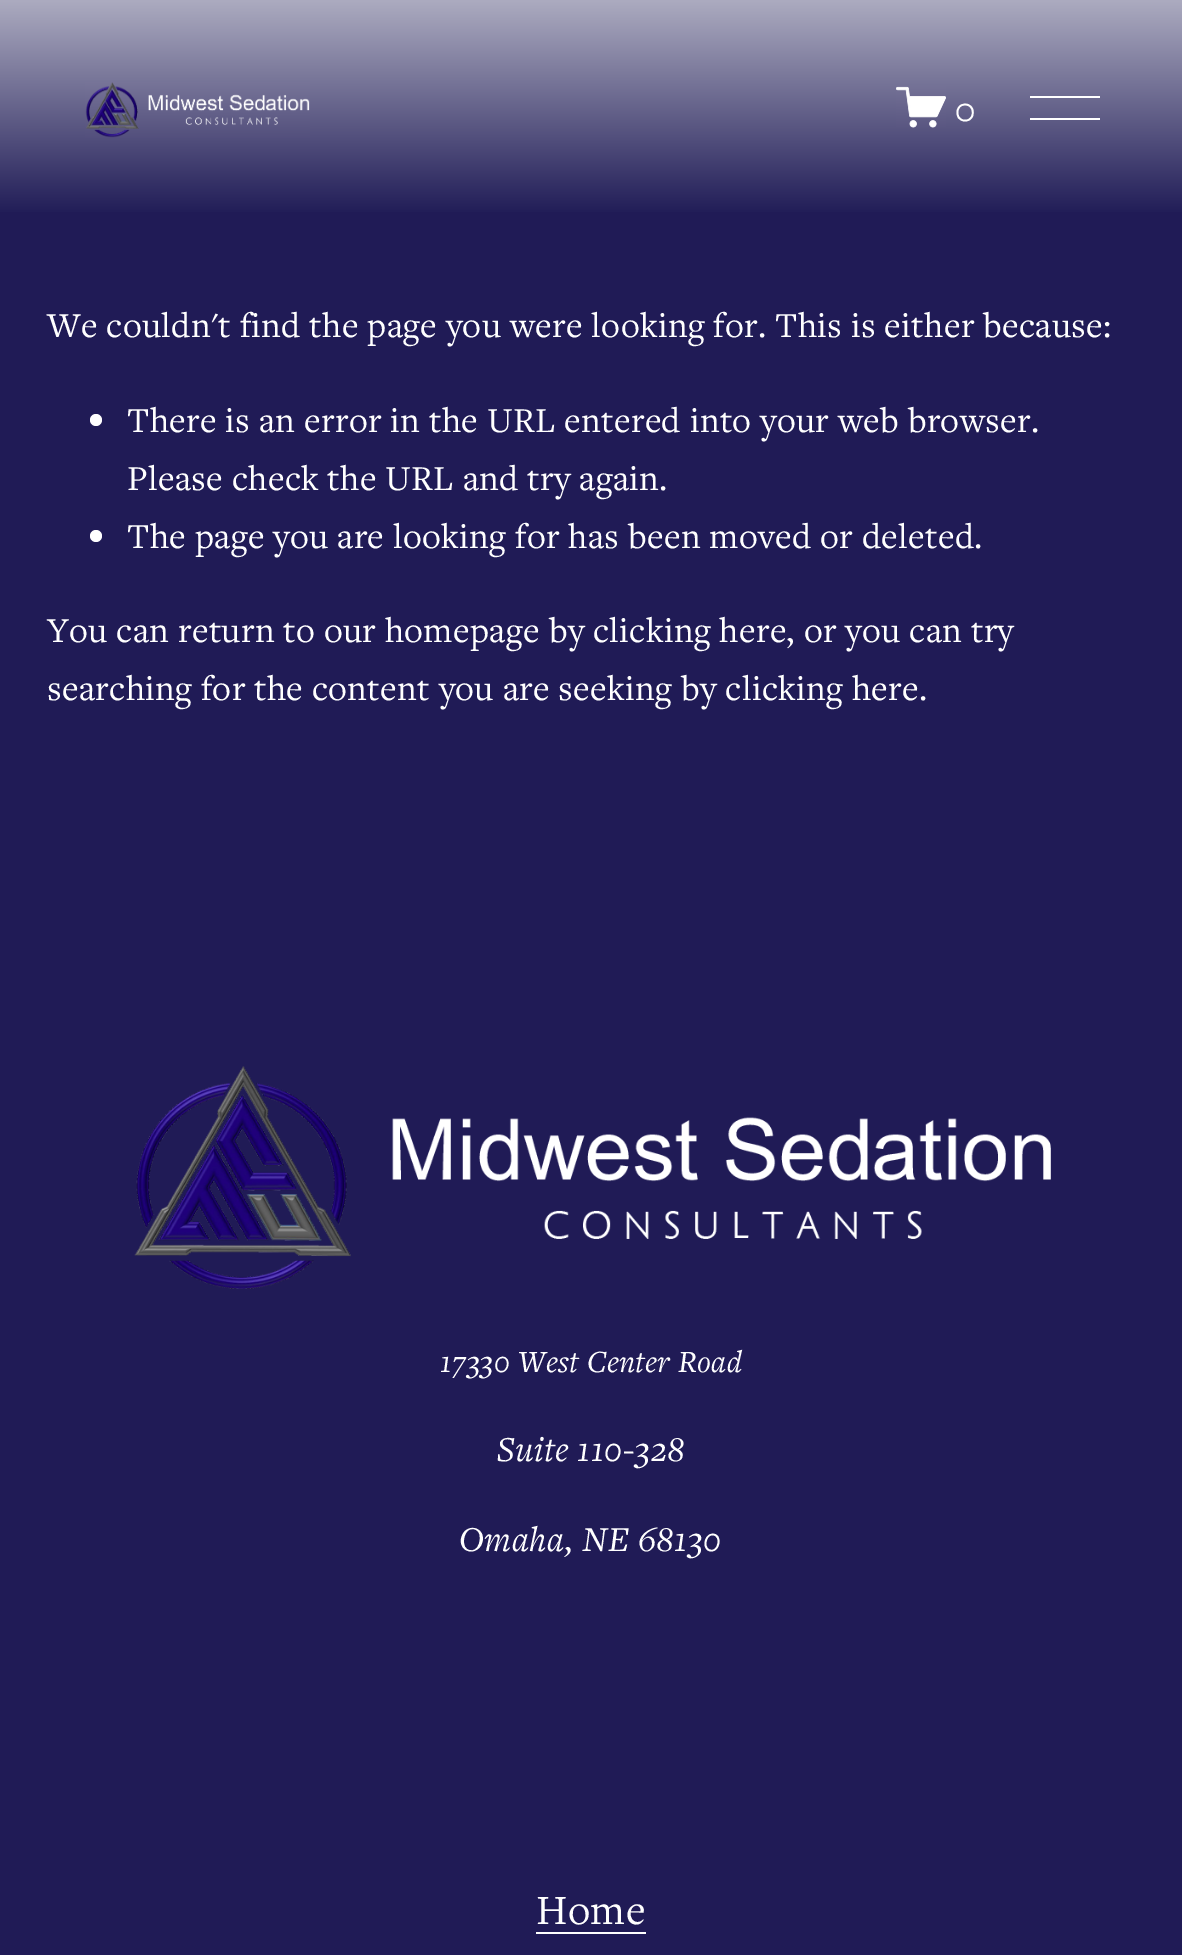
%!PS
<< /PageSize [1182 1955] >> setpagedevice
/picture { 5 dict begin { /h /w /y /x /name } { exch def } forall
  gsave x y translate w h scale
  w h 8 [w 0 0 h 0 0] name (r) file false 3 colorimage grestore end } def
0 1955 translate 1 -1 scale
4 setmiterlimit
0.125 0.106 0.337 setrgbcolor
0 0 1182 1955 rectfill
gsave newpath 0 0 moveto 1182 0 lineto 1182 212 lineto 0 212 lineto closepath clip newpath
<< /ShadingType 2 /ColorSpace /DeviceRGB /Coords [591 0 591 216] /Extend [true true] /Function << /FunctionType 2 /Domain [0 1] /C0 [0.675 0.671 0.753] /C1 [0.125 0.106 0.337] /N 1 >> >> shfill grestore
(img1.rgb) 85 82 225 56 picture
(img2.rgb) 896 86 50 42 picture
/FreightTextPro-Regular [36.3 0 0 -36.3 0 0] selectfont
1 setgray
955 121 moveto 0.35 0 (0) ashow
1030 96 70 2 rectfill
1030 118 70 2 rectfill
47 337 moveto 0.35 0 (We couldn't find the page you were looking for. This is either because:) ashow
newpath 96 420 6 0 360 arc closepath fill
127 432 moveto 0.35 0 (There is an error in the URL entered into your web browser.) ashow
127 490 moveto 0.35 0 (Please check the URL and try again.) ashow
newpath 96 536 6 0 360 arc closepath fill
127 548 moveto 0.35 0 (The page you are looking for has been moved or deleted.) ashow
47 642 moveto 0.35 0 (You can return to our homepage by clicking here, or you can try) ashow
47 700 moveto 0.35 0 (searching for the content you are seeking by clicking here.) ashow
(img3.rgb) 134 1066 917 223 picture
/FreightTextPro-Italic [32 0 0 -32 0 0] selectfont
440 1372 moveto 0.35 0 (17330 West Center Road) ashow
/FreightTextPro-Italic [36.3 0 0 -36.3 0 0] selectfont
497 1461 moveto 0.35 0 (Suite 110-328) ashow
459 1551 moveto 0.35 0 (Omaha, NE 68130) ashow
/FreightTextPro-Regular [43 0 0 -43 0 0] selectfont
536 1924 moveto 0.35 0 (Home) ashow
536 1932 110 2 rectfill
showpage
